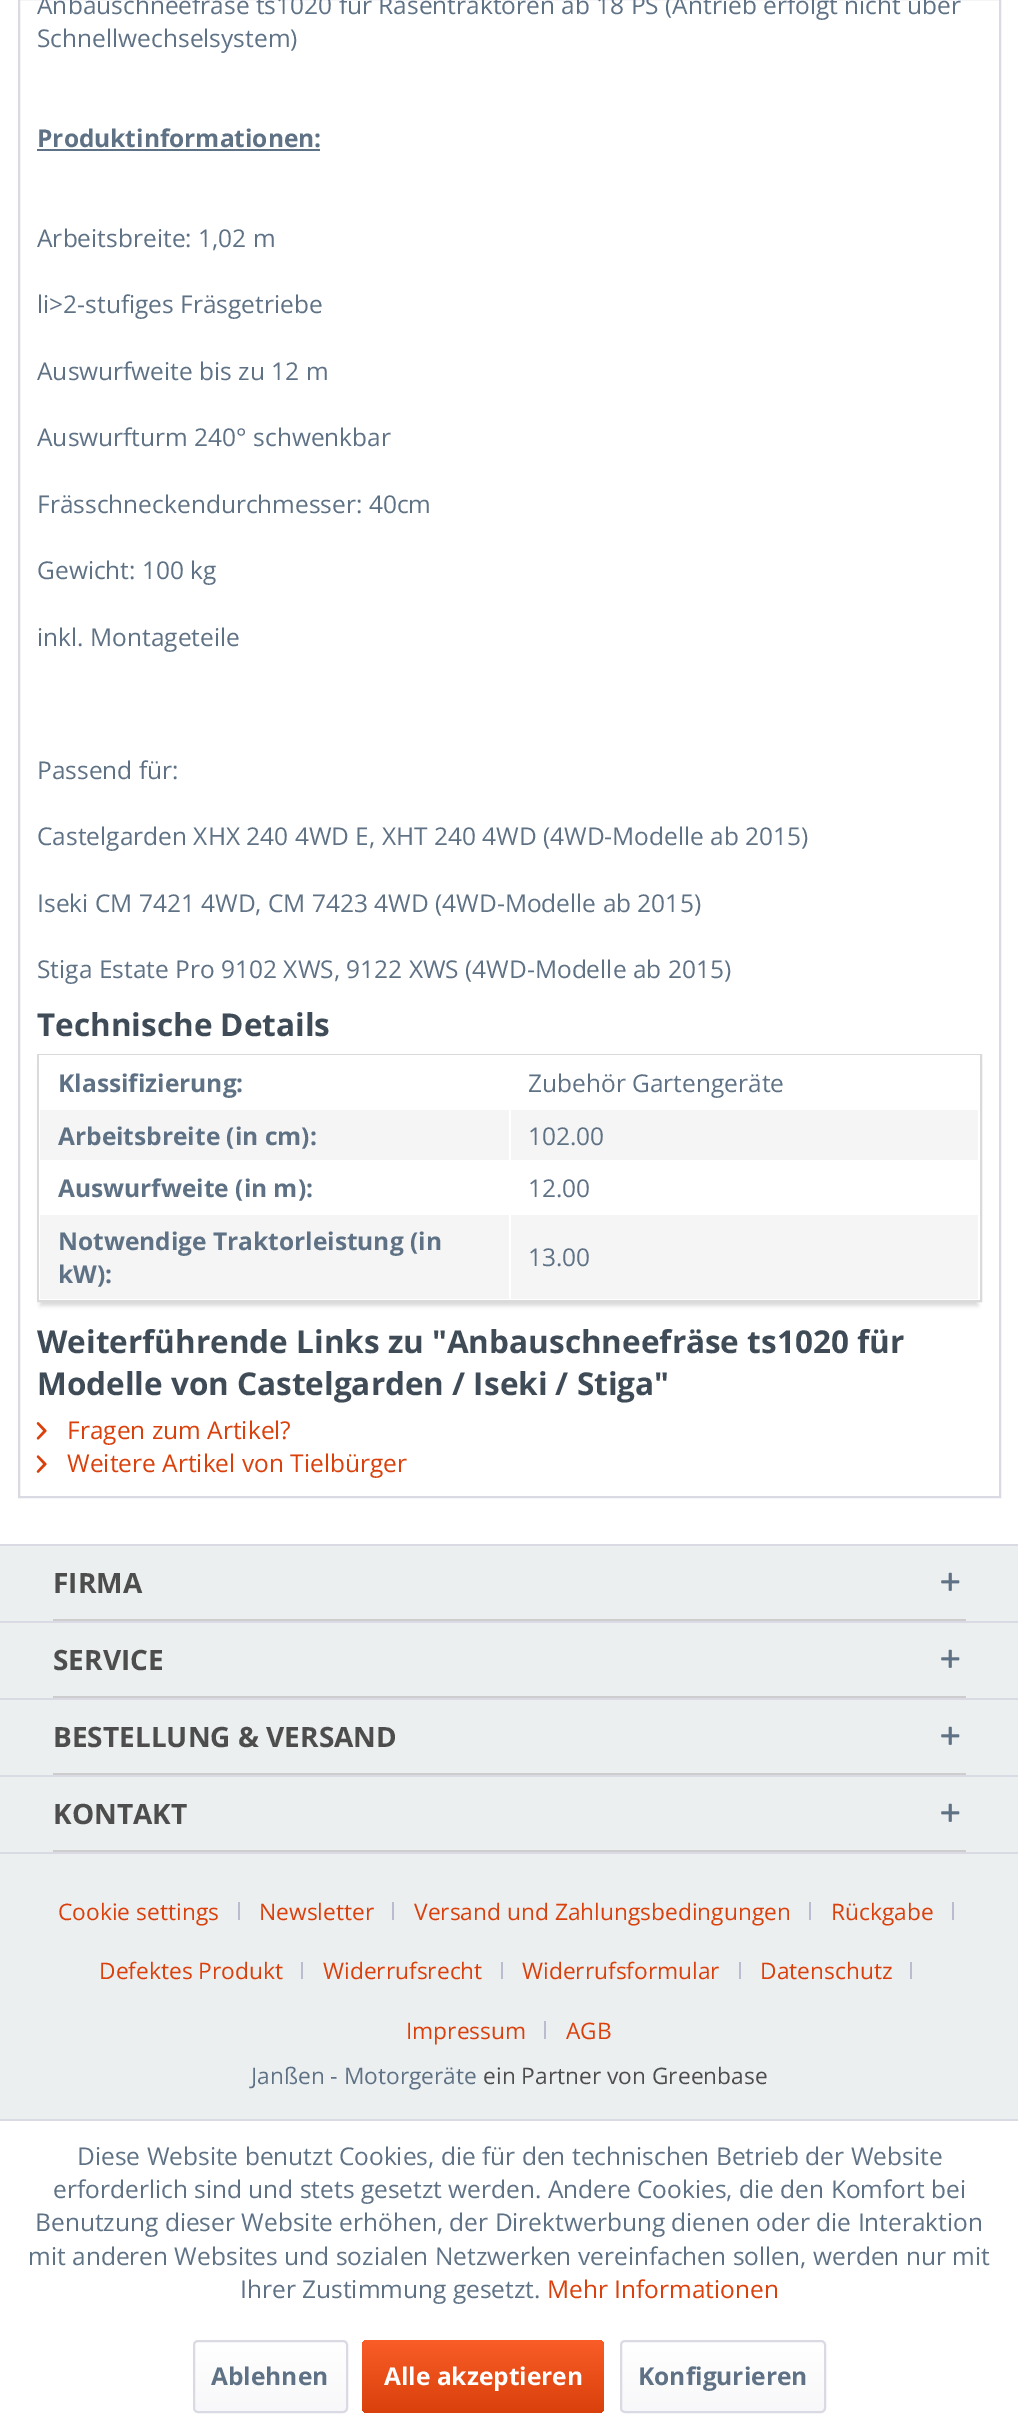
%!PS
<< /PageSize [1018 2430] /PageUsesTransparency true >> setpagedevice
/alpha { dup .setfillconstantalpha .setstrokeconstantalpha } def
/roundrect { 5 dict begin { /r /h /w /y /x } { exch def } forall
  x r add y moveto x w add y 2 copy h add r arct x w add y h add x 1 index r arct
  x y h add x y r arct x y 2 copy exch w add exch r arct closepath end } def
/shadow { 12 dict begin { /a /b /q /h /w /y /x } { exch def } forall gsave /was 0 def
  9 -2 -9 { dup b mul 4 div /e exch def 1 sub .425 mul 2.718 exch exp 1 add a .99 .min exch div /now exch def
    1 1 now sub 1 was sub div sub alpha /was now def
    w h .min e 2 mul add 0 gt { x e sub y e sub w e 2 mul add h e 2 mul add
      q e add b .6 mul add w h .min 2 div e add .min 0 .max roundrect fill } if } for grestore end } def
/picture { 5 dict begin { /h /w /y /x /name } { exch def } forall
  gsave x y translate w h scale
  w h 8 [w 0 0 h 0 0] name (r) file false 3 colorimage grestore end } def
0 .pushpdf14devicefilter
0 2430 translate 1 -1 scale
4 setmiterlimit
1 setgray
0 0 1018 2430 rectfill
0.855 0.855 0.898 setrgbcolor
2 setlinewidth
19 -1 981 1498 rectstroke
/OpenSans-Regular [24.5 0 0 -24.5 0 0] selectfont
0.373 0.447 0.522 setrgbcolor
37 14 moveto (Anbauschneefräse ts1020 für Rasentraktoren ab 18 PS \(Antrieb erfolgt nicht über) show
37 47 moveto (Schnellwechselsystem\)) show
/OpenSans-Bold [24.5 0 0 -24.5 0 0] selectfont
37 147 moveto (Produktinformationen:) show
37 149 283 2 rectfill
/OpenSans-Regular [24.5 0 0 -24.5 0 0] selectfont
37 247 moveto (Arbeitsbreite: 1,02 m) show
37 313 moveto (li>2-stufiges Fräsgetriebe) show
37 380 moveto (Auswurfweite bis zu 12 m) show
37 446 moveto (Auswurfturm 240° schwenkbar) show
37 513 moveto (Frässchneckendurchmesser: 40cm) show
37 579 moveto (Gewicht: 100 kg) show
37 646 moveto (inkl. Montageteile) show
37 779 moveto (Passend für:) show
37 845 moveto (Castelgarden XHX 240 4WD E, XHT 240 4WD \(4WD-Modelle ab 2015\)) show
37 912 moveto (Iseki CM 7421 4WD, CM 7423 4WD \(4WD-Modelle ab 2015\)) show
37 978 moveto (Stiga Estate Pro 9102 XWS, 9122 XWS \(4WD-Modelle ab 2015\)) show
/OpenSans-Bold [31.5 0 0 -31.5 0 0] selectfont
0.247 0.298 0.345 setrgbcolor
37 1036 moveto (Technische Details) show
0.859 0.855 0.855 setrgbcolor
40 1064 938 242 0 2 1 shadow
38 1055 943 246 rectstroke
1 setgray
39 1055 941 245 rectfill
/OpenSans-Bold [24.5 0 0 -24.5 0 0] selectfont
0.373 0.447 0.522 setrgbcolor
58 1092 moveto (Klassifizierung:) show
/OpenSans-Regular [24.5 0 0 -24.5 0 0] selectfont
528 1092 moveto (Zubehör Gartengeräte) show
0.961 setgray
40 1110 469 50 rectfill
/OpenSans-Bold [24.5 0 0 -24.5 0 0] selectfont
0.373 0.447 0.522 setrgbcolor
58 1145 moveto (Arbeitsbreite \(in cm\):) show
0.961 setgray
511 1110 467 50 rectfill
/OpenSans-Regular [24.5 0 0 -24.5 0 0] selectfont
0.373 0.447 0.522 setrgbcolor
528 1145 moveto (102.00) show
/OpenSans-Bold [24.5 0 0 -24.5 0 0] selectfont
58 1197 moveto (Auswurfweite \(in m\):) show
/OpenSans-Regular [24.5 0 0 -24.5 0 0] selectfont
528 1197 moveto (12.00) show
0.961 setgray
40 1215 469 84 rectfill
/OpenSans-Bold [24.5 0 0 -24.5 0 0] selectfont
0.373 0.447 0.522 setrgbcolor
58 1250 moveto (Notwendige Traktorleistung \(in) show
58 1283 moveto (kW\):) show
0.961 setgray
511 1215 467 84 rectfill
/OpenSans-Regular [24.5 0 0 -24.5 0 0] selectfont
0.373 0.447 0.522 setrgbcolor
528 1266 moveto (13.00) show
/OpenSans-Bold [31.5 0 0 -31.5 0 0] selectfont
0.247 0.298 0.345 setrgbcolor
37 1353 moveto (Weiterführende Links zu "Anbauschneefräse ts1020 für) show
37 1395 moveto (Modelle von Castelgarden / Iseki / Stiga") show
(img1.rgb) 36 1422 11 18 picture
/OpenSans-Regular [24.5 0 0 -24.5 0 0] selectfont
0.851 0.251 0.043 setrgbcolor
67 1439 moveto (Fragen zum Artikel?) show
(img2.rgb) 36 1455 11 18 picture
67 1472 moveto (Weitere Artikel von Tielbürger) show
0.925 0.937 0.941 setrgbcolor
0 1546 1018 306 rectfill
0.855 0.855 0.898 setrgbcolor
0 1544 1018 2 rectfill
0.804 setgray
53 1619 913 2 rectfill
/OpenSans-Bold [28 0 0 -28 0 0] selectfont
0.302 setgray
53 1593 moveto (FIRMA) show
(img3.rgb) 941 1572 19 19 picture
0.855 0.855 0.898 setrgbcolor
0 1621 1018 2 rectfill
0.804 setgray
53 1696 913 2 rectfill
0.302 setgray
53 1670 moveto (SERVICE) show
(img3.rgb) 941 1649 19 19 picture
0.855 0.855 0.898 setrgbcolor
0 1698 1018 2 rectfill
0.804 setgray
53 1773 913 2 rectfill
0.302 setgray
53 1747 moveto (BESTELLUNG & VERSAND) show
(img3.rgb) 941 1726 19 19 picture
0.855 0.855 0.898 setrgbcolor
0 1775 1018 2 rectfill
0 1852 1018 2 rectfill
0.804 setgray
53 1850 913 2 rectfill
0.302 setgray
53 1824 moveto (KONTAKT) show
(img3.rgb) 941 1803 19 19 picture
0.925 0.937 0.941 setrgbcolor
0 1854 1018 265 rectfill
/OpenSans-Regular [22.75 0 0 -22.75 0 0] selectfont
0.851 0.251 0.043 setrgbcolor
58 1920 moveto (Cookie settings) show
0.737 0.737 0.816 setrgbcolor
238 1902 2 18 rectfill
0.851 0.251 0.043 setrgbcolor
259 1920 moveto (Newsletter) show
0.737 0.737 0.816 setrgbcolor
392 1902 2 18 rectfill
0.851 0.251 0.043 setrgbcolor
414 1920 moveto (Versand und Zahlungsbedingungen) show
0.737 0.737 0.816 setrgbcolor
809 1902 2 18 rectfill
0.851 0.251 0.043 setrgbcolor
831 1920 moveto (Rückgabe) show
0.737 0.737 0.816 setrgbcolor
952 1902 2 18 rectfill
0.851 0.251 0.043 setrgbcolor
99 1979 moveto (Defektes Produkt) show
0.737 0.737 0.816 setrgbcolor
301 1962 2 17 rectfill
0.851 0.251 0.043 setrgbcolor
323 1979 moveto (Widerrufsrecht) show
0.737 0.737 0.816 setrgbcolor
501 1962 2 17 rectfill
0.851 0.251 0.043 setrgbcolor
522 1979 moveto (Widerrufsformular) show
0.737 0.737 0.816 setrgbcolor
739 1962 2 17 rectfill
0.851 0.251 0.043 setrgbcolor
760 1979 moveto (Datenschutz) show
0.737 0.737 0.816 setrgbcolor
910 1962 2 17 rectfill
0.851 0.251 0.043 setrgbcolor
406 2039 moveto (Impressum) show
0.737 0.737 0.816 setrgbcolor
544 2021 2 18 rectfill
0.851 0.251 0.043 setrgbcolor
566 2039 moveto (AGB) show
0.373 0.447 0.522 setrgbcolor
251 2084 moveto (Janßen - Motorgeräte) show
0.302 setgray
483 2084 moveto (ein Partner von Greenbase) show
0.855 0.855 0.898 setrgbcolor
0 2119 1018 2 rectfill
/OpenSans-Regular [24.5 0 0 -24.5 0 0] selectfont
0.373 0.447 0.522 setrgbcolor
77 2165 moveto (Diese Website benutzt Cookies, die für den technischen Betrieb der Website) show
53 2198 moveto (erforderlich sind und stets gesetzt werden. Andere Cookies, die den Komfort bei) show
35 2231 moveto (Benutzung dieser Website erhöhen, der Direktwerbung dienen oder die Interaktion) show
28 2265 moveto (mit anderen Websites und sozialen Netzwerken vereinfachen sollen, werden nur mit) show
240 2298 moveto (Ihrer Zustimmung gesetzt.) show
0.851 0.251 0.043 setrgbcolor
547 2298 moveto (Mehr Informationen) show
gsave 194 2342 153 70 4 roundrect clip newpath
<< /ShadingType 2 /ColorSpace /DeviceRGB /Coords [270 2342 270 2412] /Extend [true true] /Function << /FunctionType 2 /Domain [0 1] /C0 [1 1 1] /C1 [0.973 0.973 0.98] /N 1 >> >> shfill grestore
0.855 0.855 0.898 setrgbcolor
194 2341 153 71 4 roundrect stroke
/OpenSans-Bold [24.5 0 0 -24.5 0 0] selectfont
0.373 0.447 0.522 setrgbcolor
211 2385 moveto (Ablehnen) show
gsave 362 2340 242 73 5 roundrect clip newpath
<< /ShadingType 2 /ColorSpace /DeviceRGB /Coords [483 2340 483 2413] /Extend [true true] /Function << /FunctionType 2 /Domain [0 1] /C0 [0.98 0.365 0.153] /C1 [0.851 0.251 0.043] /N 1 >> >> shfill grestore
1 setgray
384 2385 moveto (Alle akzeptieren) show
gsave 621 2342 203 70 4 roundrect clip newpath
<< /ShadingType 2 /ColorSpace /DeviceRGB /Coords [723 2342 723 2412] /Extend [true true] /Function << /FunctionType 2 /Domain [0 1] /C0 [1 1 1] /C1 [0.973 0.973 0.98] /N 1 >> >> shfill grestore
0.855 0.855 0.898 setrgbcolor
621 2341 204 71 4 roundrect stroke
0.373 0.447 0.522 setrgbcolor
638 2385 moveto (Konfigurieren) show
.poppdf14devicefilter showpage
